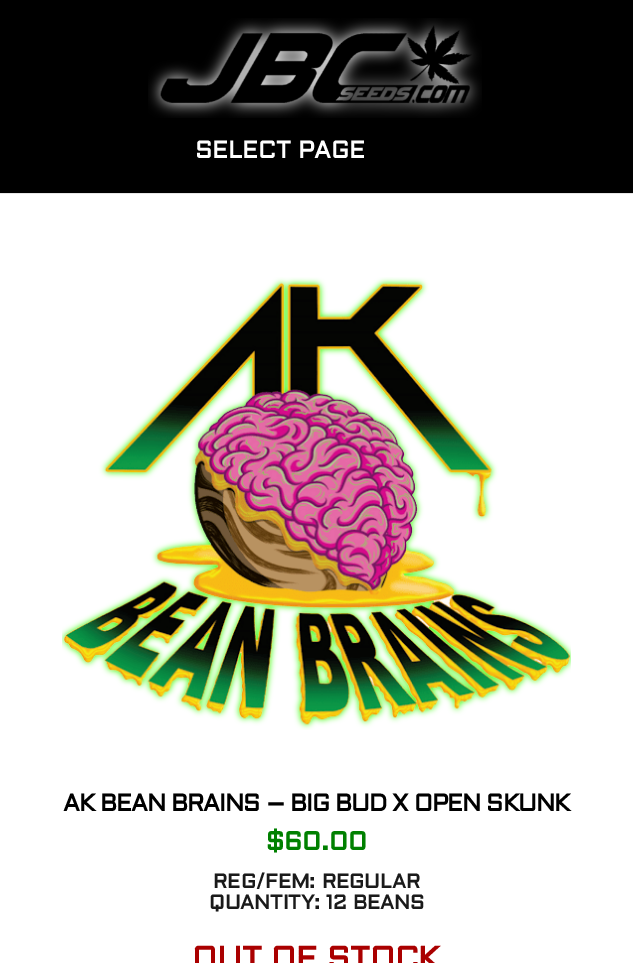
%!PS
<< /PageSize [633 963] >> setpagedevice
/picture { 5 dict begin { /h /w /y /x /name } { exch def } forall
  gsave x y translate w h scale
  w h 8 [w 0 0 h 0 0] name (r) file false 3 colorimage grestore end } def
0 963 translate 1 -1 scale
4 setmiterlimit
1 setgray
0 0 633 963 rectfill
0.902 setgray
0 193 633 1 rectfill
0 setgray
0 0 633 193 rectfill
(img1.rgb) 148 18 334 100 picture
/Aldrich-Bold [24 0 0 -24 0 0] selectfont
1 setgray
195 158 moveto (SELECT PAGE) show
(img2.rgb) 62 277 509 453 picture
0 setgray
63 811 moveto -1 0 (AK BEAN BRAINS – BIG BUD X OPEN SKUNK) ashow
/Aldrich-Bold [26 0 0 -26 0 0] selectfont
0 0.502 0 setrgbcolor
266 850 moveto ($60.00) show
/Aldrich-Bold [20 0 0 -20 0 0] selectfont
0.102 setgray
213 888 moveto (REG/FEM: REGULAR) show
209 909 moveto (QUANTITY: 12 BEANS) show
/Aldrich-Bold [32 0 0 -32 0 0] selectfont
0.667 0 0 setrgbcolor
192 969 moveto (OUT OF STOCK) show
showpage
